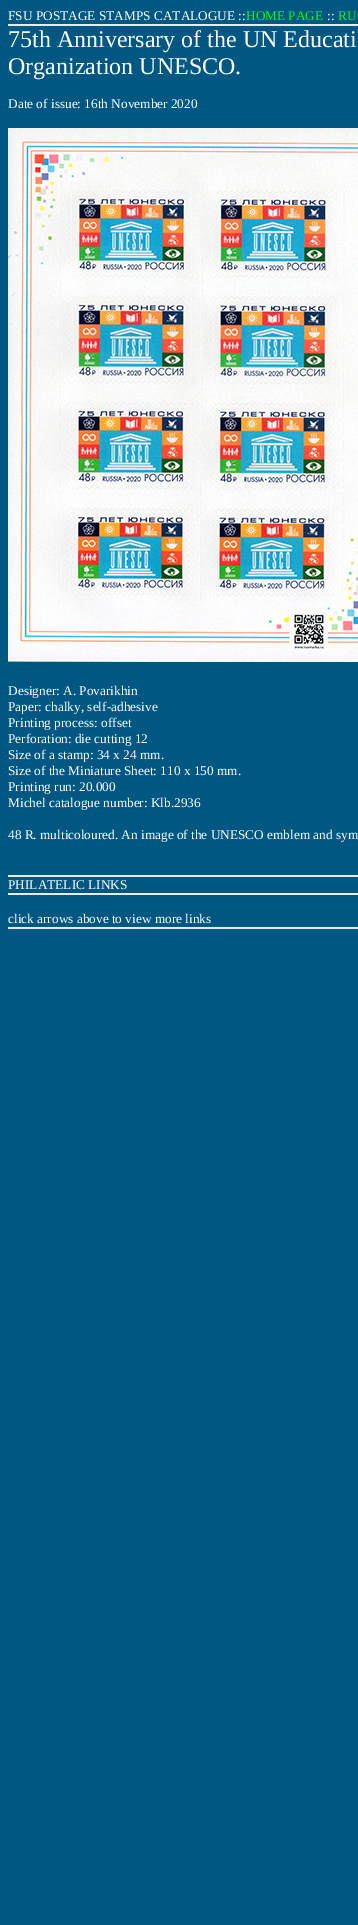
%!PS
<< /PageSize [358 1925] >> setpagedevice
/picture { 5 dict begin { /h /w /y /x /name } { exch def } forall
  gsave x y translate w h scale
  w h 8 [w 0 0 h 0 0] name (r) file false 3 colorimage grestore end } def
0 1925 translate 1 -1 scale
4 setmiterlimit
0 0.341 0.51 setrgbcolor
0 0 358 1925 rectfill
0.918 setgray
8 24 350 2 rectfill
/LiberationSerif-Regular [13.3 0 0 -13.3 0 0] selectfont
1 setgray
8 20 moveto (FSU POSTAGE STAMPS CATALOGUE ::) show
0 1 0 setrgbcolor
246 20 moveto (HOME PAGE) show
1 setgray
327 20 moveto (::) show
0 1 0 setrgbcolor
338 20 moveto (RU) show
0.918 setgray
8 875 350 2 rectfill
/LiberationSerif-Regular [24 0 0 -24 0 0] selectfont
1 setgray
8 47 moveto (75th Anniversary of the UN Educati) show
8 74 moveto (Organization UNESCO.) show
/LiberationSerif-Regular [13.3 0 0 -13.3 0 0] selectfont
8 108 moveto (Date of issue: 16th November 2020) show
(img1.rgb) 8 128 350 534 picture
8 695 moveto (Designer: A. Povarikhin) show
8 711 moveto (Paper: chalky, self-adhesive) show
8 727 moveto (Printing process: offset) show
8 743 moveto (Perforation: die cutting 12) show
8 759 moveto (Size of a stamp: 34 x 24 mm.) show
8 775 moveto (Size of the Miniature Sheet: 110 x 150 mm.) show
8 791 moveto (Printing run: 20.000) show
8 807 moveto (Michel catalogue number: Klb.2936) show
8 839 moveto (48 R. multicoloured. An image of the UNESCO emblem and sym) show
0.918 setgray
8 893 350 2 rectfill
1 setgray
8 889 moveto (PHILATELIC LINKS) show
0.918 setgray
8 927 350 2 rectfill
1 setgray
8 923 moveto (click arrows above to view more links) show
showpage
